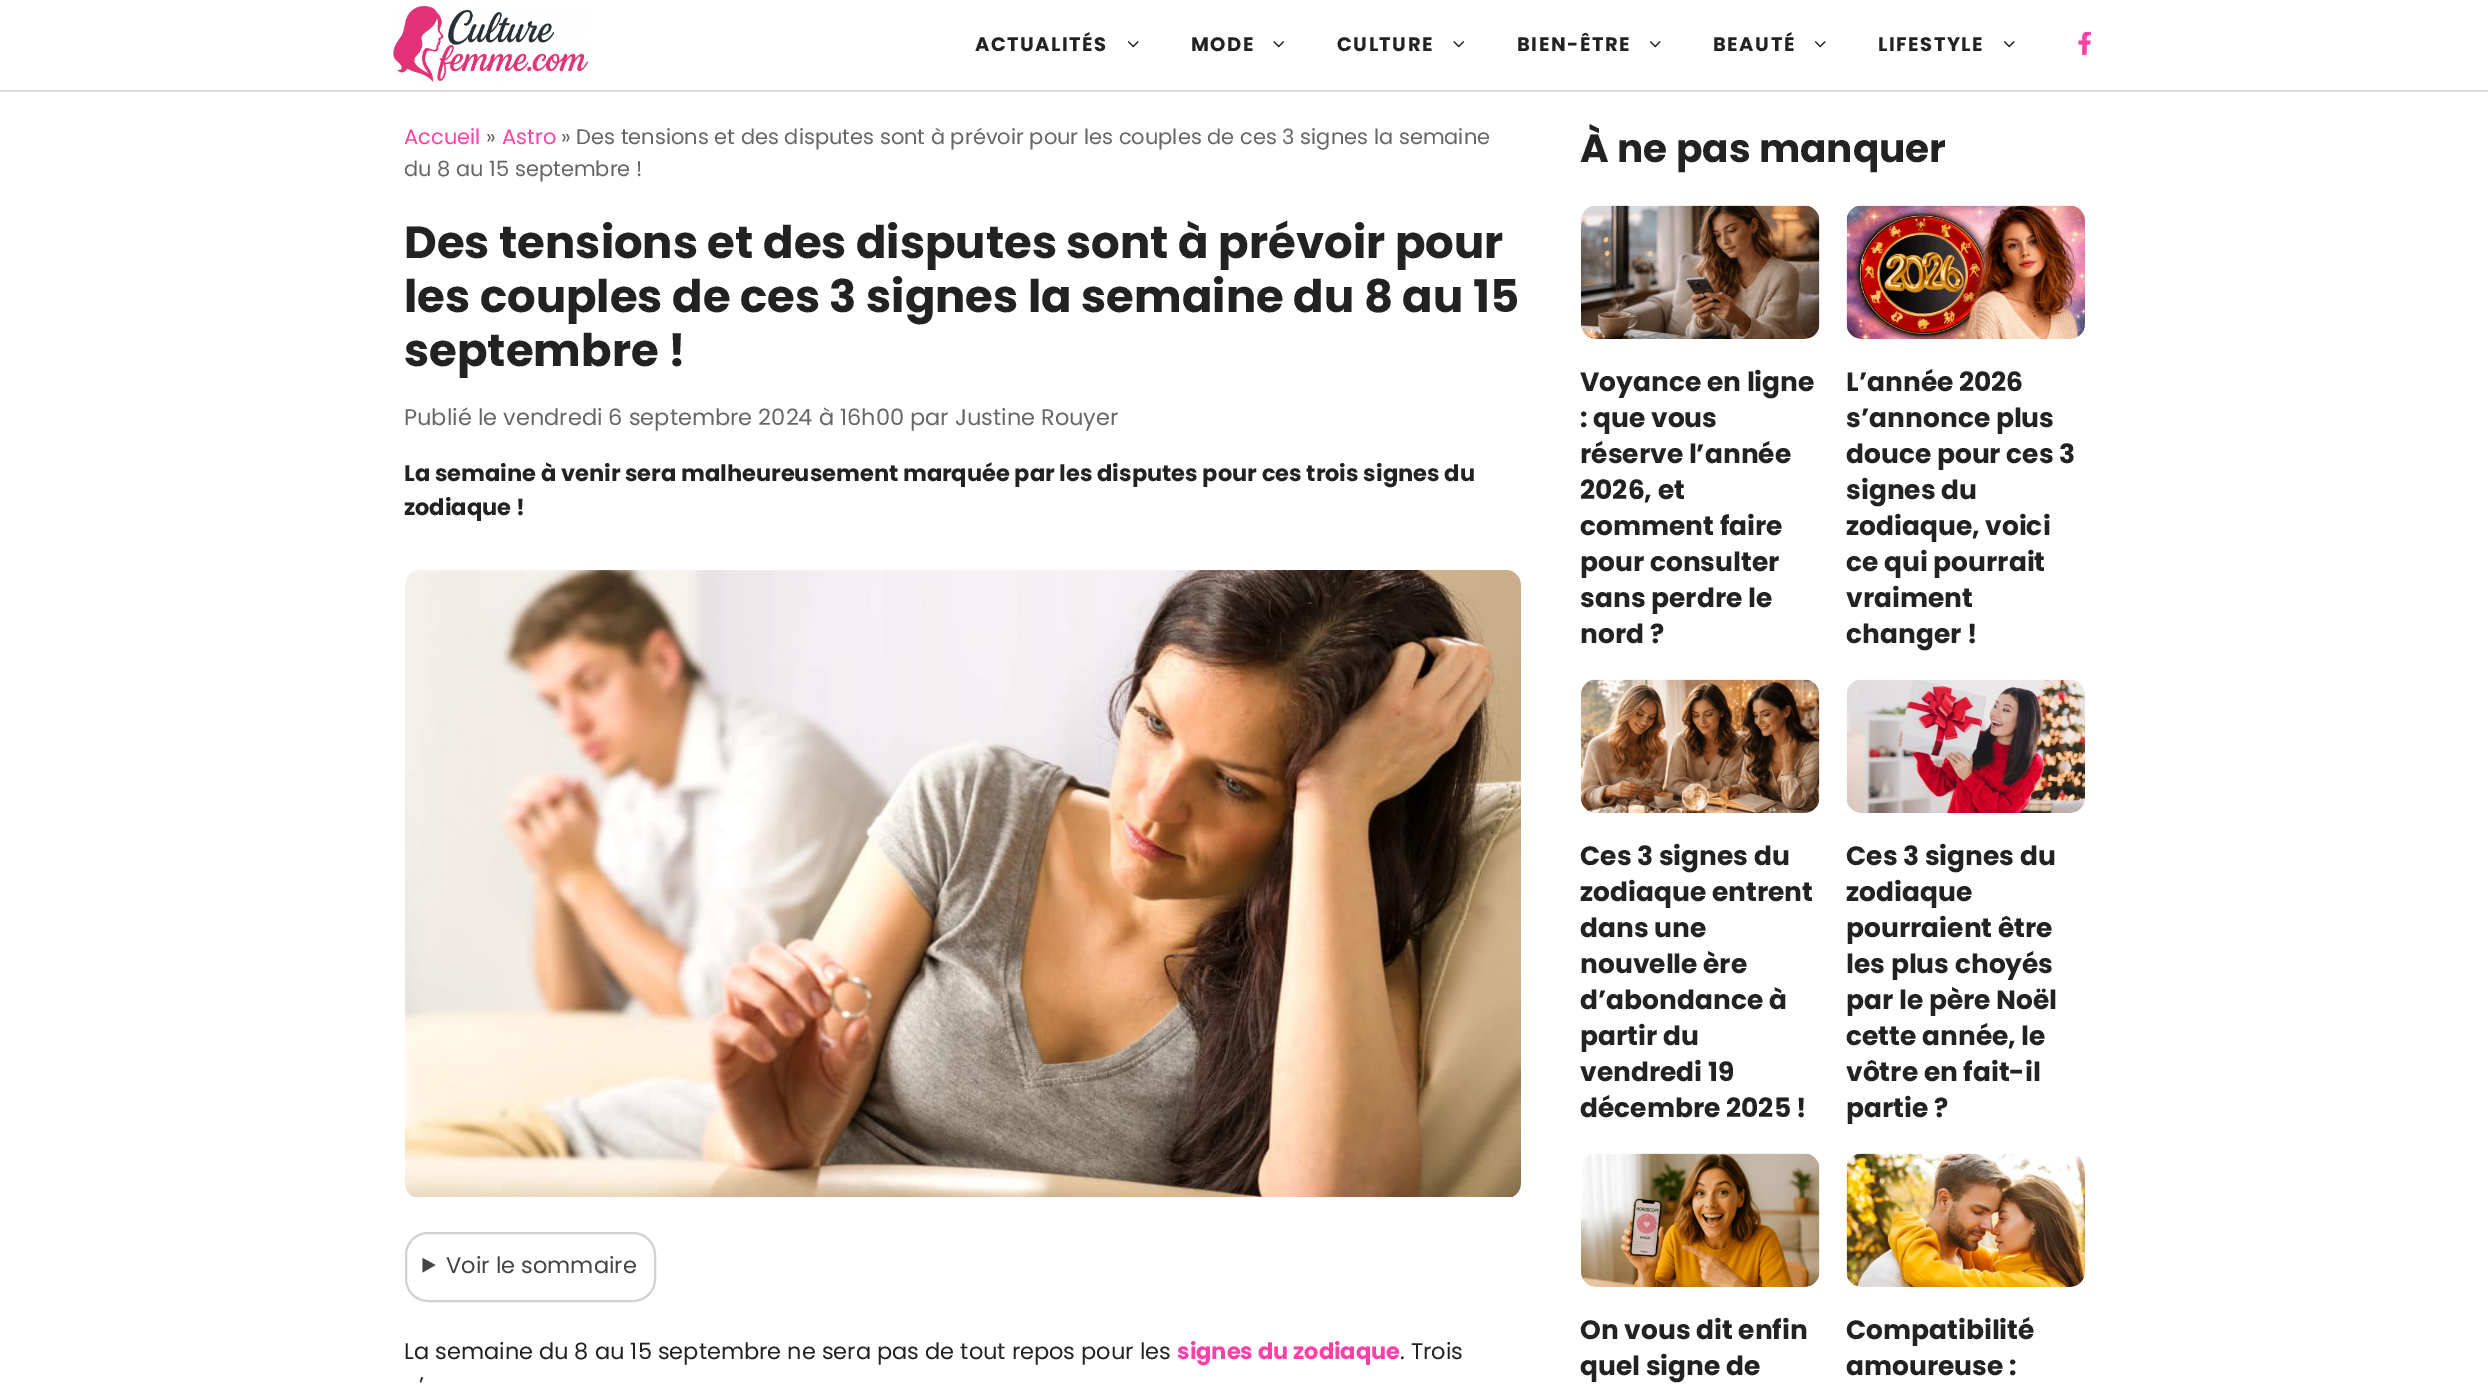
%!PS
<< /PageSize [2488 1388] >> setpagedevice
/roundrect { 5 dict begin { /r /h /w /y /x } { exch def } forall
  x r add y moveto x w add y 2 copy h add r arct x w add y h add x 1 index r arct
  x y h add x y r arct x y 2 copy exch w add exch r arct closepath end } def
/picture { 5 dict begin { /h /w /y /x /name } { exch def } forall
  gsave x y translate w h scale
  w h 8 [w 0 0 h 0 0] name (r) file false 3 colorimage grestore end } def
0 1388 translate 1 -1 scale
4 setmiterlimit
1 setgray
0 0 2488 1388 rectfill
0.867 setgray
0 90 2488 2 rectfill
(img1.rgb) 393 6 195 77 picture
/Poppins-Bold [19.5 0 0 -19.5 0 0] selectfont
0.133 setgray
975 51 moveto 1.5 0 (ACTUALITÉS) ashow
(img2.rgb) 1127 41 12 7 picture
1191 51 moveto 1.5 0 (MODE) ashow
(img3.rgb) 1273 41 11 7 picture
1337 51 moveto 1.5 0 (CULTURE) ashow
(img3.rgb) 1453 41 11 7 picture
1517 51 moveto 1.5 0 (BIEN-ÊTRE) ashow
(img2.rgb) 1649 41 12 7 picture
1713 51 moveto 1.5 0 (BEAUTÉ) ashow
(img2.rgb) 1814 41 12 7 picture
1878 51 moveto 1.5 0 (LIFESTYLE) ashow
(img2.rgb) 2003 41 12 7 picture
(img4.rgb) 2078 32 13 23 picture
/Poppins-Regular [21 0 0 -21 0 0] selectfont
1 0.251 0.663 setrgbcolor
404 144 moveto (Accueil) show
0.4 setgray
486 144 moveto (») show
1 0.251 0.663 setrgbcolor
502 144 moveto (Astro) show
0.4 setgray
561 144 moveto (» Des tensions et des disputes sont à prévoir pour les couples de ces 3 signes la semaine) show
404 176 moveto (du 8 au 15 septembre !) show
/Poppins-Bold [45 0 0 -45 0 0] selectfont
0.133 setgray
404 258 moveto (Des tensions et des disputes sont à prévoir pour) show
404 312 moveto (les couples de ces 3 signes la semaine du 8 au 15) show
404 366 moveto (septembre !) show
/Poppins-Regular [22.5 0 0 -22.5 0 0] selectfont
0.4 setgray
404 425 moveto (Publié le vendredi 6 septembre 2024 à 16h00 par Justine Rouyer) show
/Poppins-Bold [22.5 0 0 -22.5 0 0] selectfont
0.133 setgray
404 481 moveto (La semaine à venir sera malheureusement marquée par les disputes pour ces trois signes du) show
404 515 moveto (zodiaque !) show
(img5.rgb) 405 570 1116 627 picture
0.824 setgray
2 setlinewidth
406 1233 249 68 22 roundrect stroke
0.267 setgray
newpath 422.5 1258 moveto 435.5 1265 lineto 422.5 1272.5 lineto closepath fill
/Poppins-Regular [22.5 0 0 -22.5 0 0] selectfont
446 1273 moveto (Voir le sommaire) show
0.133 setgray
404 1359 moveto (La semaine du 8 au 15 septembre ne sera pas de tout repos pour les) show
/Poppins-Bold [22.5 0 0 -22.5 0 0] selectfont
1 0.251 0.663 setrgbcolor
1177 1359 moveto (signes du zodiaque) show
/Poppins-Regular [22.5 0 0 -22.5 0 0] selectfont
0.133 setgray
1400 1359 moveto (. Trois) show
419 1393 moveto (’) show
/Poppins-Bold [39 0 0 -39 0 0] selectfont
1580 162 moveto (À ne pas manquer) show
(img6.rgb) 1581 205 239 134 picture
/Poppins-Bold [26.5 0 0 -26.5 0 0] selectfont
1580 391 moveto (Voyance en ligne) show
1580 427 moveto (: que vous) show
1580 463 moveto (réserve l’année) show
1580 499 moveto (2026, et) show
1580 535 moveto (comment faire) show
1580 571 moveto (pour consulter) show
1580 607 moveto (sans perdre le) show
1580 643 moveto (nord ?) show
(img7.rgb) 1846 205 239 134 picture
1846 391 moveto (L’année 2026) show
1846 427 moveto (s’annonce plus) show
1846 463 moveto (douce pour ces 3) show
1846 499 moveto (signes du) show
1846 535 moveto (zodiaque, voici) show
1846 571 moveto (ce qui pourrait) show
1846 607 moveto (vraiment) show
1846 643 moveto (changer !) show
(img8.rgb) 1581 679 239 134 picture
1580 865 moveto (Ces 3 signes du) show
1580 901 moveto (zodiaque entrent) show
1580 937 moveto (dans une) show
1580 973 moveto (nouvelle ère) show
1580 1009 moveto (d’abondance à) show
1580 1045 moveto (partir du) show
1580 1081 moveto (vendredi 19) show
1580 1117 moveto (décembre 2025 !) show
(img9.rgb) 1846 679 239 134 picture
1846 865 moveto (Ces 3 signes du) show
1846 901 moveto (zodiaque) show
1846 937 moveto (pourraient être) show
1846 973 moveto (les plus choyés) show
1846 1009 moveto (par le père Noël) show
1846 1045 moveto (cette année, le) show
1846 1081 moveto (vôtre en fait-il) show
1846 1117 moveto (partie ?) show
(img10.rgb) 1581 1153 239 134 picture
1580 1339 moveto (On vous dit enfin) show
1580 1375 moveto (quel signe de) show
(img11.rgb) 1846 1153 239 134 picture
1846 1339 moveto (Compatibilité) show
1846 1375 moveto (amoureuse :) show
showpage
